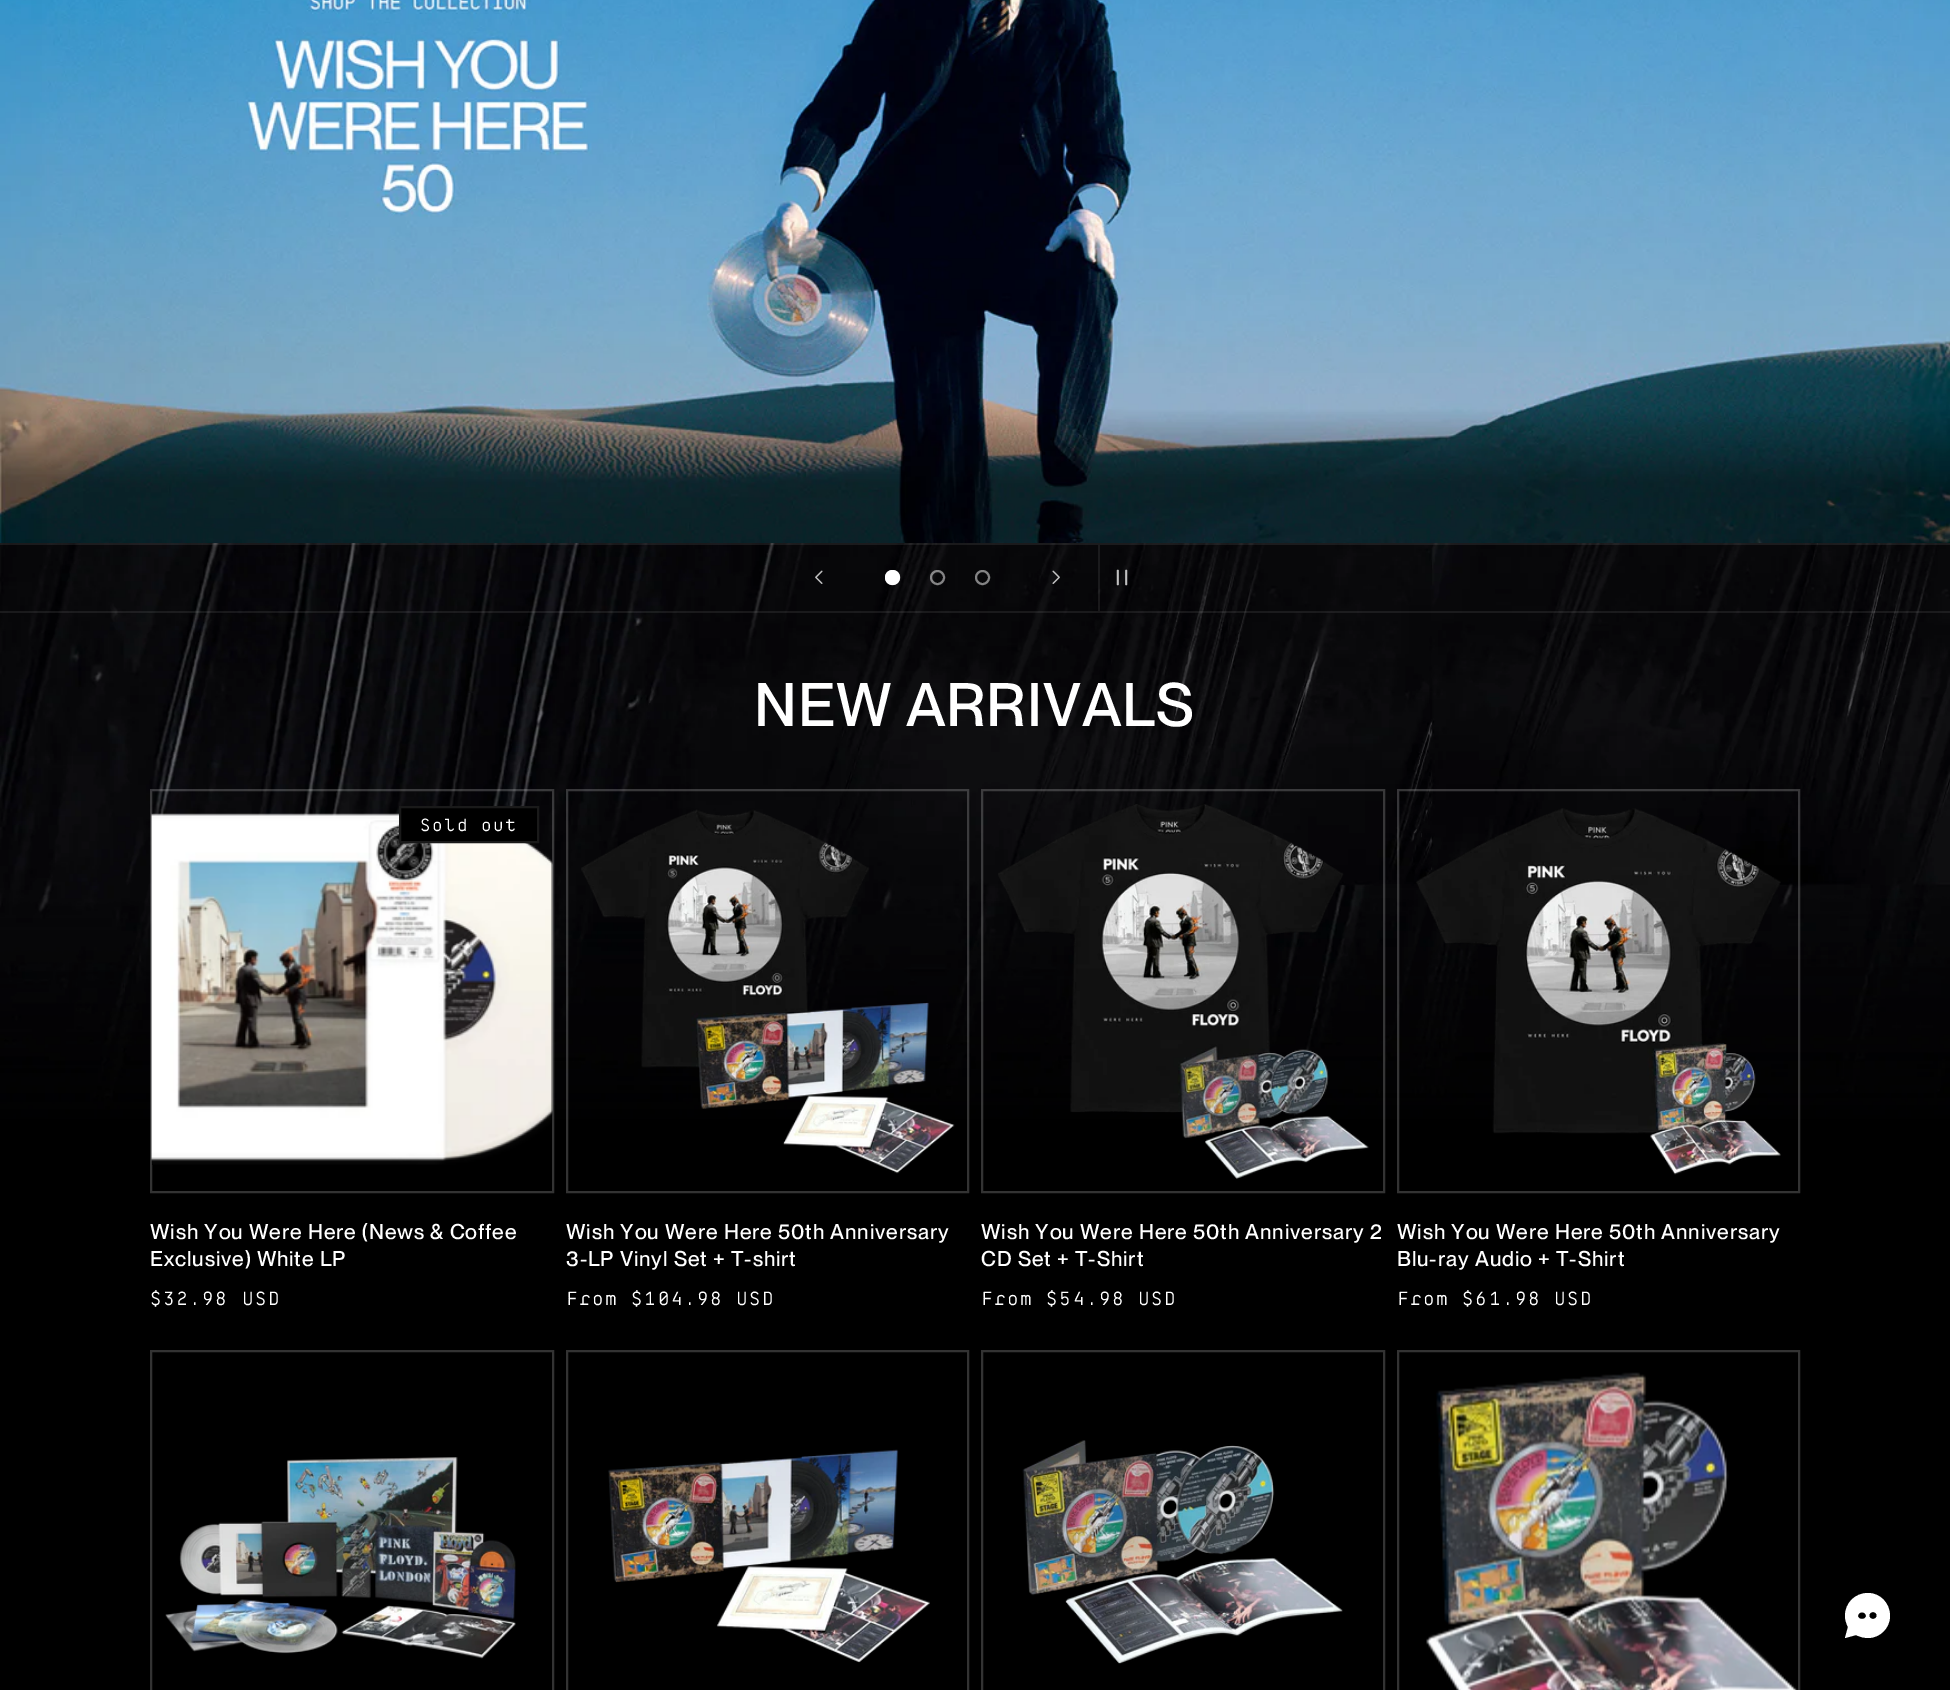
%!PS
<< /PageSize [1950 1690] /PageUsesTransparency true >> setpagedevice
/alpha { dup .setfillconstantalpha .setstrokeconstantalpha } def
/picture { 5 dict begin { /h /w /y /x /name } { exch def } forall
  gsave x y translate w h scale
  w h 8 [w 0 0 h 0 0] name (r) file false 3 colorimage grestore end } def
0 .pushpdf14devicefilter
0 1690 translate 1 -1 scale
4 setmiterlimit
0 setgray
0 0 1950 1690 rectfill
(img1.rgb) 0 543 1950 576 picture
(img2.rgb) 0 0 1950 543 picture
0.08 alpha
1 setgray
0 543 1950 2 rectfill
0 611 1950 2 rectfill
1 alpha
(img3.rgb) 815 570 8 14 picture
newpath 892.5 577.5 7.5 0 360 arc closepath fill
0.5 alpha
2 setlinewidth
newpath 892.5 577.5 6.5 0 360 arc closepath stroke
newpath 937.5 577.5 6.5 0 360 arc closepath stroke
1 alpha
0.514 0.514 0.518 setrgbcolor
newpath 982.5 577.5 6.5 0 360 arc closepath stroke
(img4.rgb) 1052 570 8 14 picture
0.08 alpha
1 setgray
1098 545 2 66 rectfill
1 alpha
(img5.rgb) 1116 569 12 17 picture
/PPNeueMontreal-Medium [60 0 0 -60 0 0] selectfont
754 726 moveto 0.9 0 (NEW ARRIVALS) ashow
0.2 alpha
151 790 402 402 rectstroke
1 alpha
(img6.rgb) 151 813 402 352 picture
0 setgray
newpath 400 807 moveto 538 807 lineto 538 842 lineto 400 842 lineto closepath gsave fill grestore
0.102 setgray
stroke
/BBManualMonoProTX-Regular [18 0 0 -18 0 0] selectfont
1 setgray
420 831 moveto 1.5 0 (Sold out) ashow
/PPNeueMontreal-Medium [21 0 0 -21 0 0] selectfont
150 1239 moveto 0.9 0 (Wish You Were Here \(News & Coffee) ashow
150 1266 moveto 0.9 0 (Exclusive\) White LP) ashow
/BBManualMonoProTX-Regular [19.5 0 0 -19.5 0 0] selectfont
150 1305 moveto 1.5 0 ($32.98 USD) ashow
0.2 alpha
567 790 401 402 rectstroke
1 alpha
(img7.rgb) 581 809 374 365 picture
/PPNeueMontreal-Medium [21 0 0 -21 0 0] selectfont
566 1239 moveto 0.9 0 (Wish You Were Here 50th Anniversary) ashow
566 1266 moveto 0.9 0 (3-LP Vinyl Set + T-shirt) ashow
/BBManualMonoProTX-Regular [19.5 0 0 -19.5 0 0] selectfont
566 1305 moveto 1.5 0 (From $104.98 USD) ashow
0.2 alpha
982 790 402 402 rectstroke
1 alpha
(img8.rgb) 998 804 371 375 picture
/PPNeueMontreal-Medium [21 0 0 -21 0 0] selectfont
981 1239 moveto 0.9 0 (Wish You Were Here 50th Anniversary 2) ashow
981 1266 moveto 0.9 0 (CD Set + T-Shirt) ashow
/BBManualMonoProTX-Regular [19.5 0 0 -19.5 0 0] selectfont
981 1305 moveto 1.5 0 (From $54.98 USD) ashow
0.2 alpha
1398 790 401 402 rectstroke
1 alpha
(img9.rgb) 1416 808 365 367 picture
/PPNeueMontreal-Medium [21 0 0 -21 0 0] selectfont
1397 1239 moveto 0.9 0 (Wish You Were Here 50th Anniversary) ashow
1397 1266 moveto 0.9 0 (Blu-ray Audio + T-Shirt) ashow
/BBManualMonoProTX-Regular [19.5 0 0 -19.5 0 0] selectfont
1397 1305 moveto 1.5 0 (From $61.98 USD) ashow
0.2 setgray
151 1351 402 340 rectstroke
(img10.rgb) 165 1457 351 202 picture
567 1351 401 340 rectstroke
(img11.rgb) 608 1449 322 214 picture
982 1351 402 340 rectstroke
(img12.rgb) 1022 1440 321 224 picture
1398 1351 401 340 rectstroke
(img13.rgb) 1426 1372 372 318 picture
1 setgray
newpath 1868 1638 moveto 1880 1638 1890 1628 1890 1616 curveto 1890 1603 1880 1593 1868 1593 curveto 1855 1593 1845 1603 1845 1616 curveto 1845 1619 1846 1623 1848 1627 curveto 1845 1638 lineto 1856 1635 lineto 1860 1637 1864 1638 1868 1638 curveto closepath 1866 1616 moveto 1866 1620 1858 1620 1858 1616 curveto 1858 1611 1866 1611 1866 1616 curveto closepath 1873 1619 moveto 1878 1619 1878 1612 1873 1612 curveto 1868 1612 1868 1619 1873 1619 curveto closepath eofill
.poppdf14devicefilter showpage
